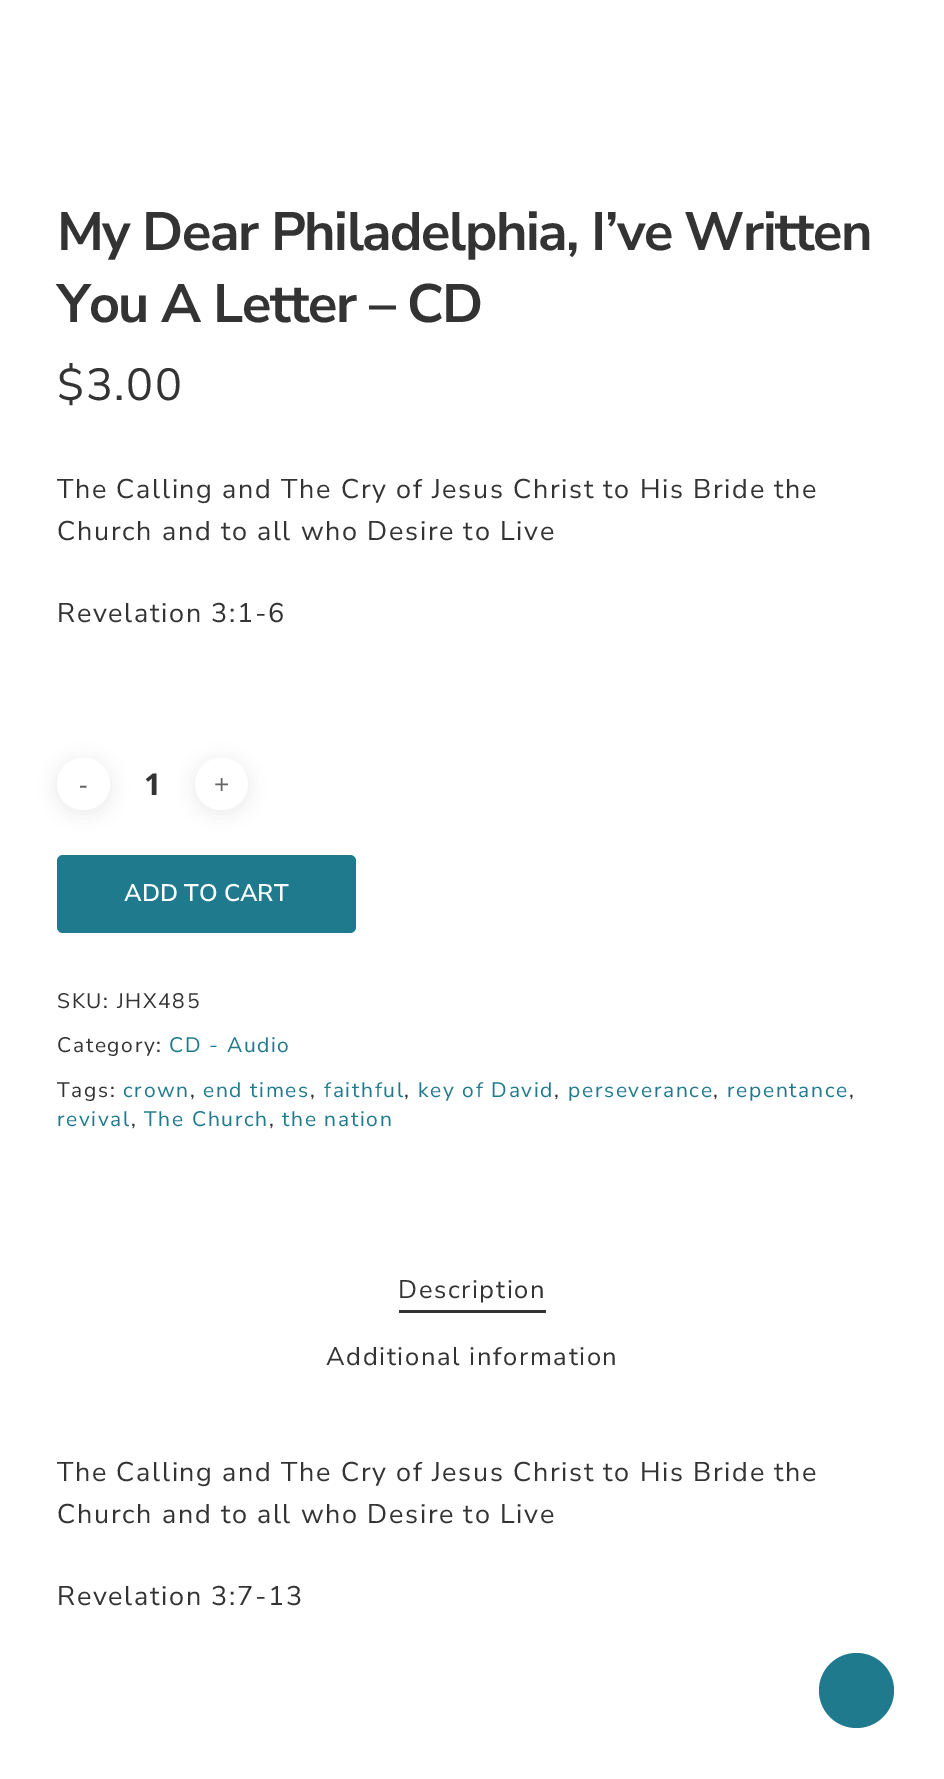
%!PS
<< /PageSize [944 1779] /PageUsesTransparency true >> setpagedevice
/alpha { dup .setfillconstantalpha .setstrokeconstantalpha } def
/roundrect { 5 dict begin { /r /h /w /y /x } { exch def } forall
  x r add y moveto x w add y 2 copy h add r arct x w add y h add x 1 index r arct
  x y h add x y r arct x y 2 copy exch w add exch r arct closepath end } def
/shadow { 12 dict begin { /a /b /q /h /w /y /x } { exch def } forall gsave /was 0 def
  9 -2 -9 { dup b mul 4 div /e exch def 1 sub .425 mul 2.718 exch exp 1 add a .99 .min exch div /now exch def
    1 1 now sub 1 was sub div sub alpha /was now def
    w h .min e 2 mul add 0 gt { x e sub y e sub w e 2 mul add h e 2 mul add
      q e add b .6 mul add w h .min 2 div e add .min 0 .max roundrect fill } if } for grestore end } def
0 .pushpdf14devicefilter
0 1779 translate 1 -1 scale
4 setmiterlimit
1 setgray
0 0 944 1779 rectfill
/NunitoSans-Bold [54 0 0 -54 0 0] selectfont
0.2 setgray
57 250 moveto -1.5 0 (My Dear Philadelphia, I’ve Written) ashow
57 322 moveto -1.5 0 (You A Letter – CD) ashow
/NunitoSans-Regular [45 0 0 -45 0 0] selectfont
57 400 moveto 1.65 0 ($3.00) ashow
/NunitoSans-Regular [27 0 0 -27 0 0] selectfont
57 498 moveto 1.65 0 (The Calling and The Cry of Jesus Christ to His Bride the) ashow
57 540 moveto 1.65 0 (Church and to all who Desire to Live) ashow
57 622 moveto 1.65 0 (Revelation 3:1-6) ashow
0 setgray
57 761 53 52 26 9 0.08 shadow
1 setgray
57 758 53 52 26 roundrect fill
/OpenSans-Regular [27 0 0 -27 0 0] selectfont
0.4 setgray
79 794 moveto (-) show
/OpenSans-Bold [30 0 0 -30 0 0] selectfont
0.2 setgray
144 795 moveto (1) show
0 setgray
195 761 53 52 26 9 0.08 shadow
1 setgray
195 758 53 52 26 roundrect fill
/OpenSans-Regular [27 0 0 -27 0 0] selectfont
0.4 setgray
214 794 moveto (+) show
0.125 0.478 0.553 setrgbcolor
57 855 299 78 6 roundrect fill
/NunitoSans-SemiBold [24 0 0 -24 0 0] selectfont
1 setgray
124 901 moveto (ADD TO CART) show
/NunitoSans-Regular [21 0 0 -21 0 0] selectfont
0.2 setgray
57 1008 moveto 1.65 0 (SKU: JHX485) ashow
57 1052 moveto 1.65 0 (Category:) ashow
0.125 0.478 0.553 setrgbcolor
169 1052 moveto 1.65 0 (CD - Audio) ashow
0.2 setgray
57 1097 moveto 1.65 0 (Tags:) ashow
0.125 0.478 0.553 setrgbcolor
123 1097 moveto 1.65 0 (crown) ashow
0.2 setgray
190 1097 moveto 1.65 0 (,) ashow
0.125 0.478 0.553 setrgbcolor
203 1097 moveto 1.65 0 (end times) ashow
0.2 setgray
310 1097 moveto 1.65 0 (,) ashow
0.125 0.478 0.553 setrgbcolor
324 1097 moveto 1.65 0 (faithful) ashow
0.2 setgray
404 1097 moveto 1.65 0 (,) ashow
0.125 0.478 0.553 setrgbcolor
418 1097 moveto 1.65 0 (key of David) ashow
0.2 setgray
554 1097 moveto 1.65 0 (,) ashow
0.125 0.478 0.553 setrgbcolor
568 1097 moveto 1.65 0 (perseverance) ashow
0.2 setgray
713 1097 moveto 1.65 0 (,) ashow
0.125 0.478 0.553 setrgbcolor
727 1097 moveto 1.65 0 (repentance) ashow
0.2 setgray
849 1097 moveto 1.65 0 (,) ashow
0.125 0.478 0.553 setrgbcolor
57 1126 moveto 1.65 0 (revival) ashow
0.2 setgray
131 1126 moveto 1.65 0 (,) ashow
0.125 0.478 0.553 setrgbcolor
144 1126 moveto 1.65 0 (The Church) ashow
0.2 setgray
269 1126 moveto 1.65 0 (,) ashow
0.125 0.478 0.553 setrgbcolor
282 1126 moveto 1.65 0 (the nation) ashow
0.2 setgray
399 1310 147 3 rectfill
/NunitoSans-Regular [25.5 0 0 -25.5 0 0] selectfont
398 1298 moveto 1.65 0 (Description) ashow
326 1365 moveto 1.65 0 (Additional information) ashow
/NunitoSans-Regular [27 0 0 -27 0 0] selectfont
57 1481 moveto 1.65 0 (The Calling and The Cry of Jesus Christ to His Bride the) ashow
57 1523 moveto 1.65 0 (Church and to all who Desire to Live) ashow
57 1605 moveto 1.65 0 (Revelation 3:7-13) ashow
0.125 0.478 0.553 setrgbcolor
newpath 856.5 1690.5 37.5 0 360 arc closepath fill
.poppdf14devicefilter showpage
